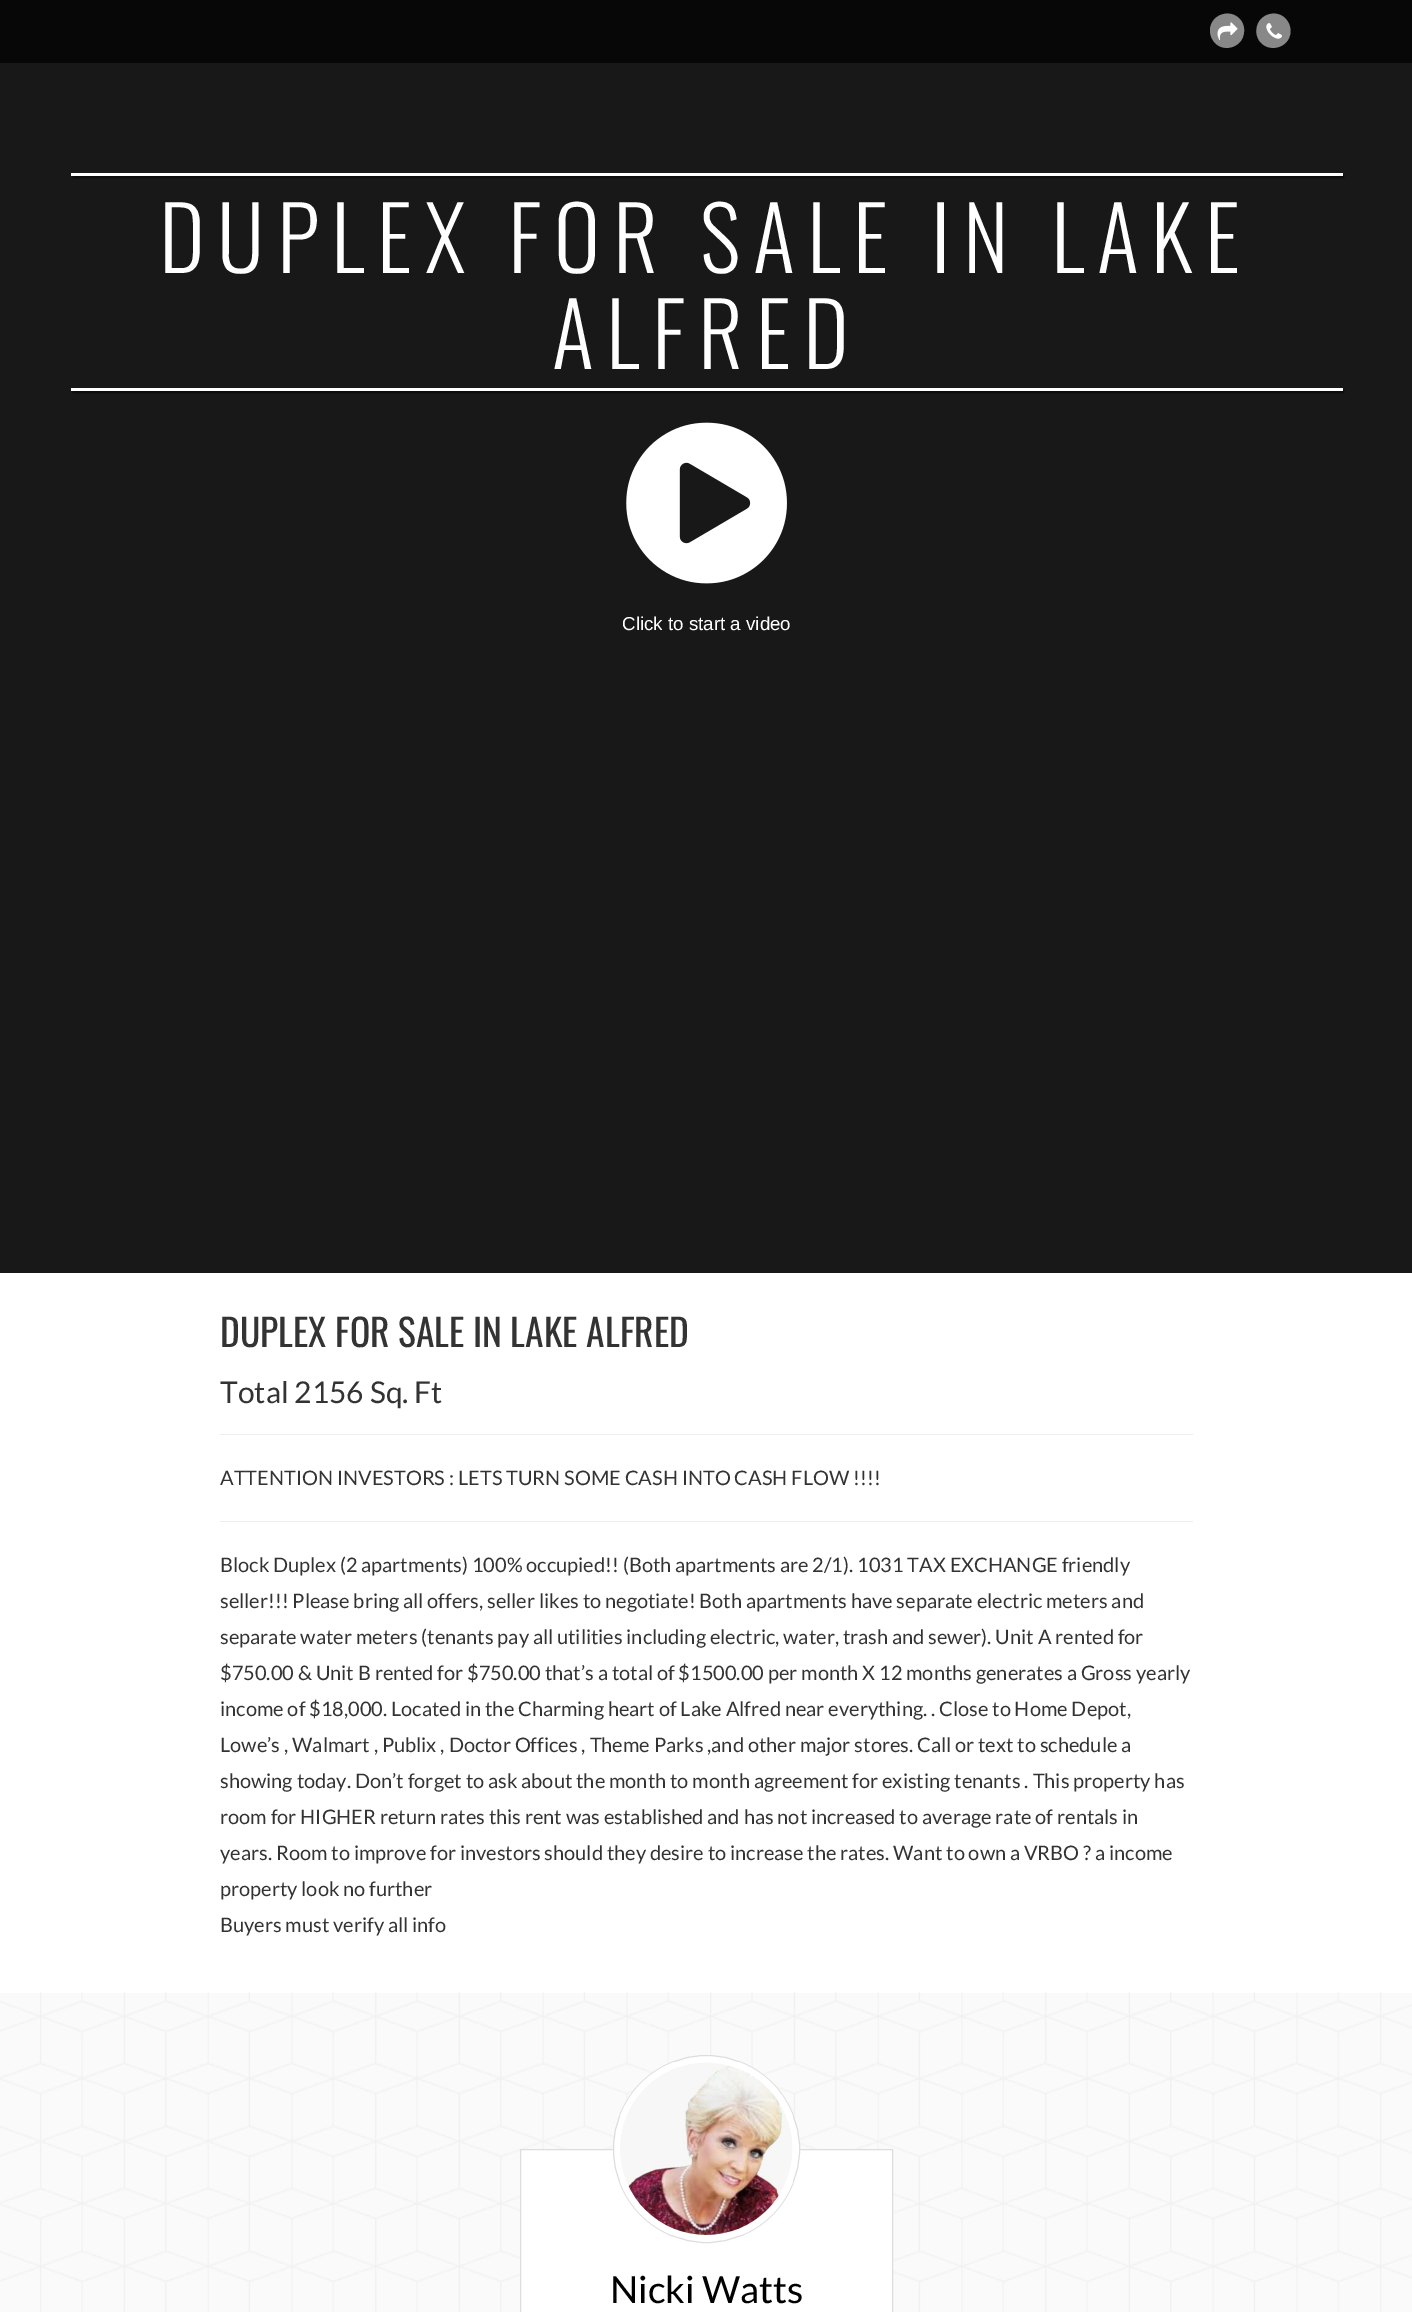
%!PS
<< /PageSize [1412 2312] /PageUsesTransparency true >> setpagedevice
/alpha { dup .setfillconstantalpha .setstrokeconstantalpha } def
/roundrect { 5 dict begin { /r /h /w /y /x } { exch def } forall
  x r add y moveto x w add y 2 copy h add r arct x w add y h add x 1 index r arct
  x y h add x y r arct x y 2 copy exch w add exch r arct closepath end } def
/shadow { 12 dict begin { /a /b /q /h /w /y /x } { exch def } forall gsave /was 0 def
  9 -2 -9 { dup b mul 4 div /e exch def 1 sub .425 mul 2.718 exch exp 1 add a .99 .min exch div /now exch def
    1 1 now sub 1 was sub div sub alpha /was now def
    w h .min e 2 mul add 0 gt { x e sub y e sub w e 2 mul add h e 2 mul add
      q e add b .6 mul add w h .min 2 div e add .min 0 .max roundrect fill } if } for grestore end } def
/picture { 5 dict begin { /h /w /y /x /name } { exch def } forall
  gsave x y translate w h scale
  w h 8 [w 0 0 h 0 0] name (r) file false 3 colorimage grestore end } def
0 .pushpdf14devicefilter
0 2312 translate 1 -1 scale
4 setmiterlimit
1 setgray
0 0 1412 2312 rectfill
0.027 setgray
0 0 1412 63 rectfill
0.533 setgray
newpath 1242 22 moveto 1243.5 25 1244.5 28.5 1244 32 curveto 1243 48.5 1220.5 54 1212.5 39.5 curveto 1210.5 36.5 1210 33 1210 29.5 curveto 1211 13 1233.5 7.5 1242 22 curveto closepath fill
(img1.rgb) 1217 22 21 19 picture
newpath 1288 22 moveto 1290 25 1290.5 28.5 1290.5 32 curveto 1289.5 48.5 1267 54 1258.5 39.5 curveto 1257 36.5 1256 33 1256.5 29.5 curveto 1257.5 13 1280 7.5 1288 22 curveto closepath fill
(img2.rgb) 1266 23 16 16 picture
0.094 setgray
0 63 1412 1210 rectfill
0 setgray
73 175 1271 3 0 1 0.6 shadow
1 setgray
71 173 1272 3 rectfill
/Oswald-Light [87.5 0 0 -87.5 0 0] selectfont
159 273 moveto 12.5 0 (DUPLEX FOR SALE IN LAKE) ashow
552 369 moveto 12.5 0 (ALFRED) ashow
0 setgray
73 390 1271 3 0 1 0.6 shadow
1 setgray
71 388 1272 3 rectfill
(img3.rgb) 626 422 161 162 picture
/LiberationSans-Regular [18.75 0 0 -18.75 0 0] selectfont
622 630 moveto (Click to start a video) show
/Oswald-Regular [37.5 0 0 -37.5 0 0] selectfont
0.2 setgray
220 1347 moveto (DUPLEX FOR SALE IN LAKE ALFRED) show
/Lato-Regular [30 0 0 -30 0 0] selectfont
220 1403 moveto (Total 2156 Sq. Ft) show
0.933 setgray
220 1434 973 1 rectfill
/Lato-Regular [20 0 0 -20 0 0] selectfont
0.2 setgray
220 1485 moveto (ATTENTION INVESTORS : LETS TURN SOME CASH INTO CASH FLOW !!!!) show
0.933 setgray
220 1521 973 1 rectfill
0.2 setgray
220 1572 moveto (Block Duplex \(2 apartments\) 100% occupied!! \(Both apartments are 2/1\). 1031 TAX EXCHANGE friendly) show
220 1608 moveto (seller!!! Please bring all offers, seller likes to negotiate! Both apartments have separate electric meters and) show
220 1644 moveto (separate water meters \(tenants pay all utilities including electric, water, trash and sewer\). Unit A rented for) show
220 1680 moveto ($750.00 & Unit B rented for $750.00 that’s a total of $1500.00 per month X 12 months generates a Gross yearly) show
220 1716 moveto (income of $18,000. Located in the Charming heart of Lake Alfred near everything. . Close to Home Depot,) show
220 1752 moveto (Lowe’s , Walmart , Publix , Doctor Offices , Theme Parks ,and other major stores. Call or text to schedule a) show
220 1788 moveto (showing today. Don’t forget to ask about the month to month agreement for existing tenants . This property has) show
220 1824 moveto (room for HIGHER return rates this rent was established and has not increased to average rate of rentals in) show
220 1860 moveto (years. Room to improve for investors should they desire to increase the rates. Want to own a VRBO ? a income) show
220 1896 moveto (property look no further) show
220 1932 moveto (Buyers must verify all info) show
0.98 setgray
0 1993 1412 319 rectfill
(img4.rgb) 0 1992 1412 320 picture
1 setgray
newpath 520.5 2149.5 moveto 892.5 2149.5 lineto 892.5 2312.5 lineto 520.5 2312.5 lineto closepath gsave fill grestore
0.867 setgray
stroke
1 setgray
613.5 2055.5 186 187 93 roundrect gsave fill grestore
0.867 setgray
stroke
(img5.rgb) 620 2062 173 173 picture
/Lato-Regular [37.5 0 0 -37.5 0 0] selectfont
0 setgray
610 2303 moveto (Nicki Watts) show
.poppdf14devicefilter showpage
